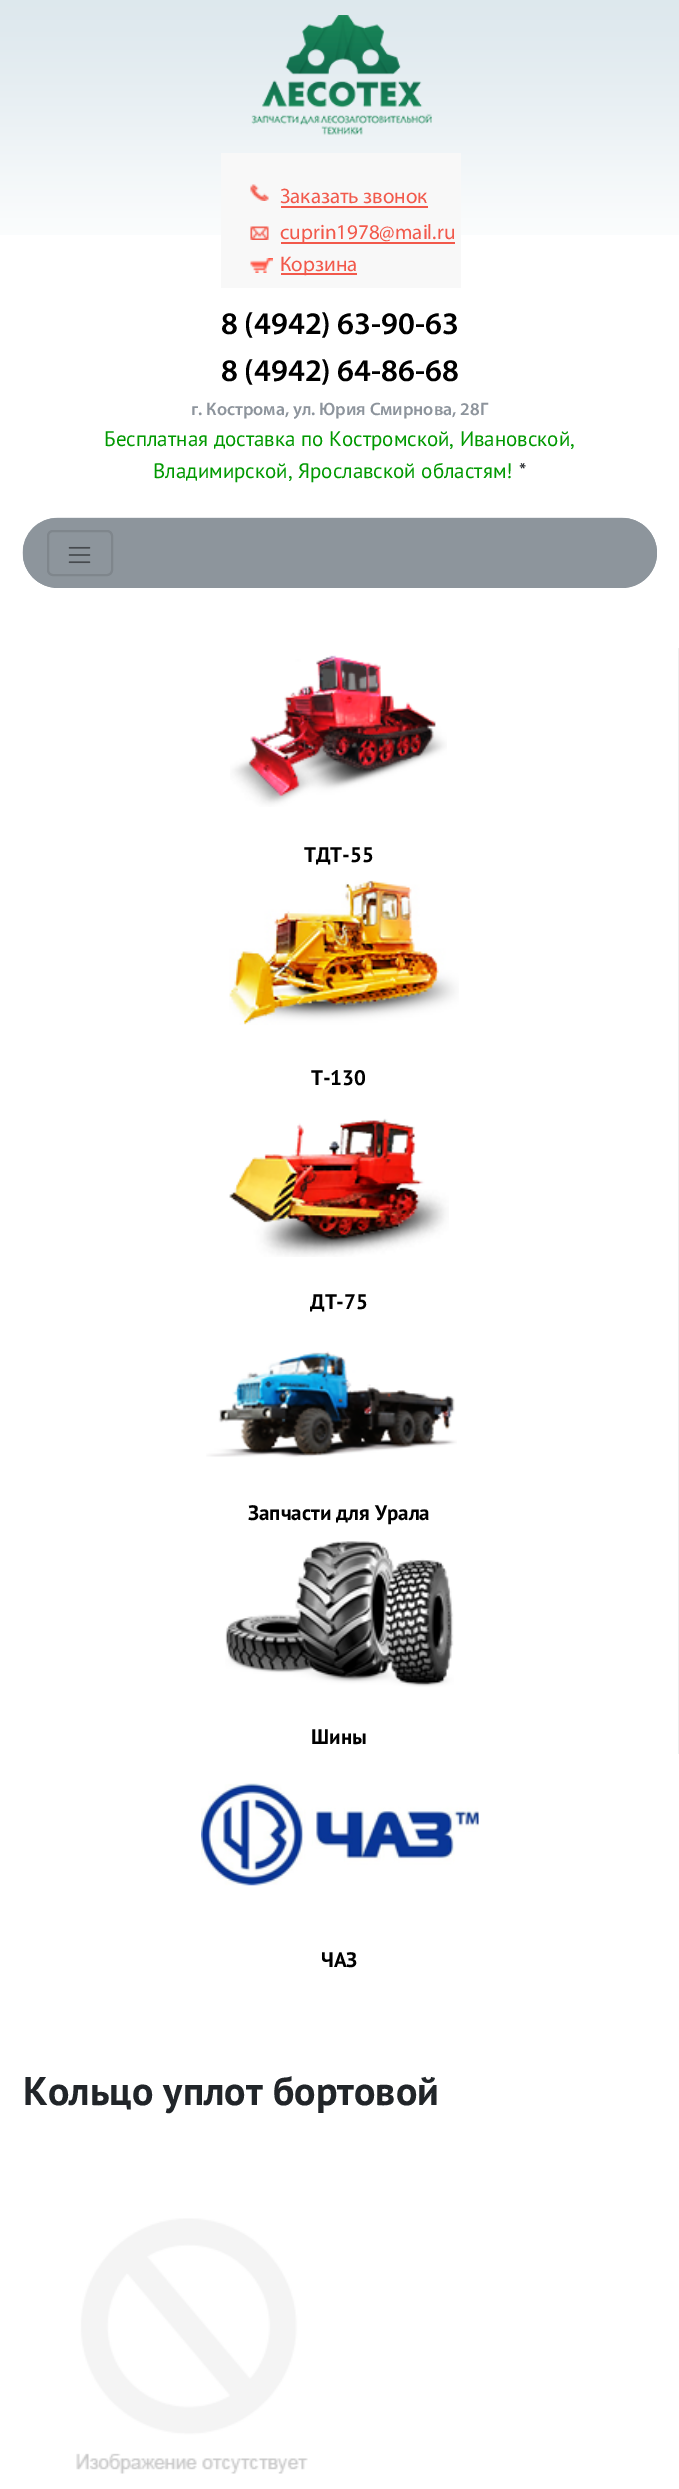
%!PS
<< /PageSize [679 2489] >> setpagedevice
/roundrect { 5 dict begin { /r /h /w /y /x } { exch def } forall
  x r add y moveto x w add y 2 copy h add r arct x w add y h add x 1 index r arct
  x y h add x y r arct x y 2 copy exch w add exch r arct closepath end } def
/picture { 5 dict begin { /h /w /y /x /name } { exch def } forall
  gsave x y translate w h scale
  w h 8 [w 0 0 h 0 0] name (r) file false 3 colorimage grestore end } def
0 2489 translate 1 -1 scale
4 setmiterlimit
1 setgray
0 0 679 2489 rectfill
(img1.rgb) 0 0 679 235 picture
(img2.rgb) 251 15 181 120 picture
0.973 setgray
221 153 240 135 rectfill
(img3.rgb) 250 184 19 17 picture
/Myriad-Regular [21 0 0 -21 0 0] selectfont
0.949 0.349 0.294 setrgbcolor
280 203 moveto (Заказать звонок) show
281 206 147 2 rectfill
(img4.rgb) 250 226 19 14 picture
281 242 174 2 rectfill
280 239 moveto (cuprin1978@mail.ru) show
(img5.rgb) 250 258 23 15 picture
281 273 76 2 rectfill
280 271 moveto (Корзина) show
/Myriad-SemiBold [31.5 0 0 -31.5 0 0] selectfont
0 setgray
221 334 moveto (8 \(4942\) 63-90-63) show
221 381 moveto (8 \(4942\) 64-86-68) show
/Myriad-SemiBold [18 0 0 -18 0 0] selectfont
0.553 0.58 0.612 setrgbcolor
191 415 moveto (г. Кострома, ул. Юрия Смирнова, 28Г) show
/PTSans-Regular [21 0 0 -21 0 0] selectfont
0 0.6 0 setrgbcolor
104 446 moveto (Бесплатная доставка по Костромской, Ивановской,) show
153 478 moveto (Владимирской, Ярославской областям!) show
0.129 0.145 0.161 setrgbcolor
519 478 moveto (*) show
(img6.rgb) 22 517 635 71 picture
0.553 0.584 0.612 setrgbcolor
23 518 634 70 35 roundrect fill
0.498 0.525 0.549 setrgbcolor
2 setlinewidth
48 531 64 44 5 roundrect stroke
(img7.rgb) 68 546 23 18 picture
0.937 setgray
678 648 1 1106 rectfill
(img8.rgb) 230 655 217 152 picture
/PTSans-Bold [21 0 0 -21 0 0] selectfont
0 setgray
304 862 moveto (ТДТ-55) show
(img9.rgb) 229 880 230 145 picture
311 1085 moveto (Т-130) show
(img10.rgb) 229 1118 220 139 picture
310 1309 moveto (ДТ-75) show
(img11.rgb) 206 1351 251 106 picture
248 1520 moveto (Запчасти для Урала) show
(img12.rgb) 225 1541 229 146 picture
311 1744 moveto (Шины) show
(img13.rgb) 201 1783 278 103 picture
321 1967 moveto (ЧАЗ) show
/PTSans-Bold [40 0 0 -40 0 0] selectfont
0.129 0.145 0.161 setrgbcolor
23 2105 moveto (Кольцо уплот бортовой) show
(img14.rgb) 76 2218 232 256 picture
showpage
